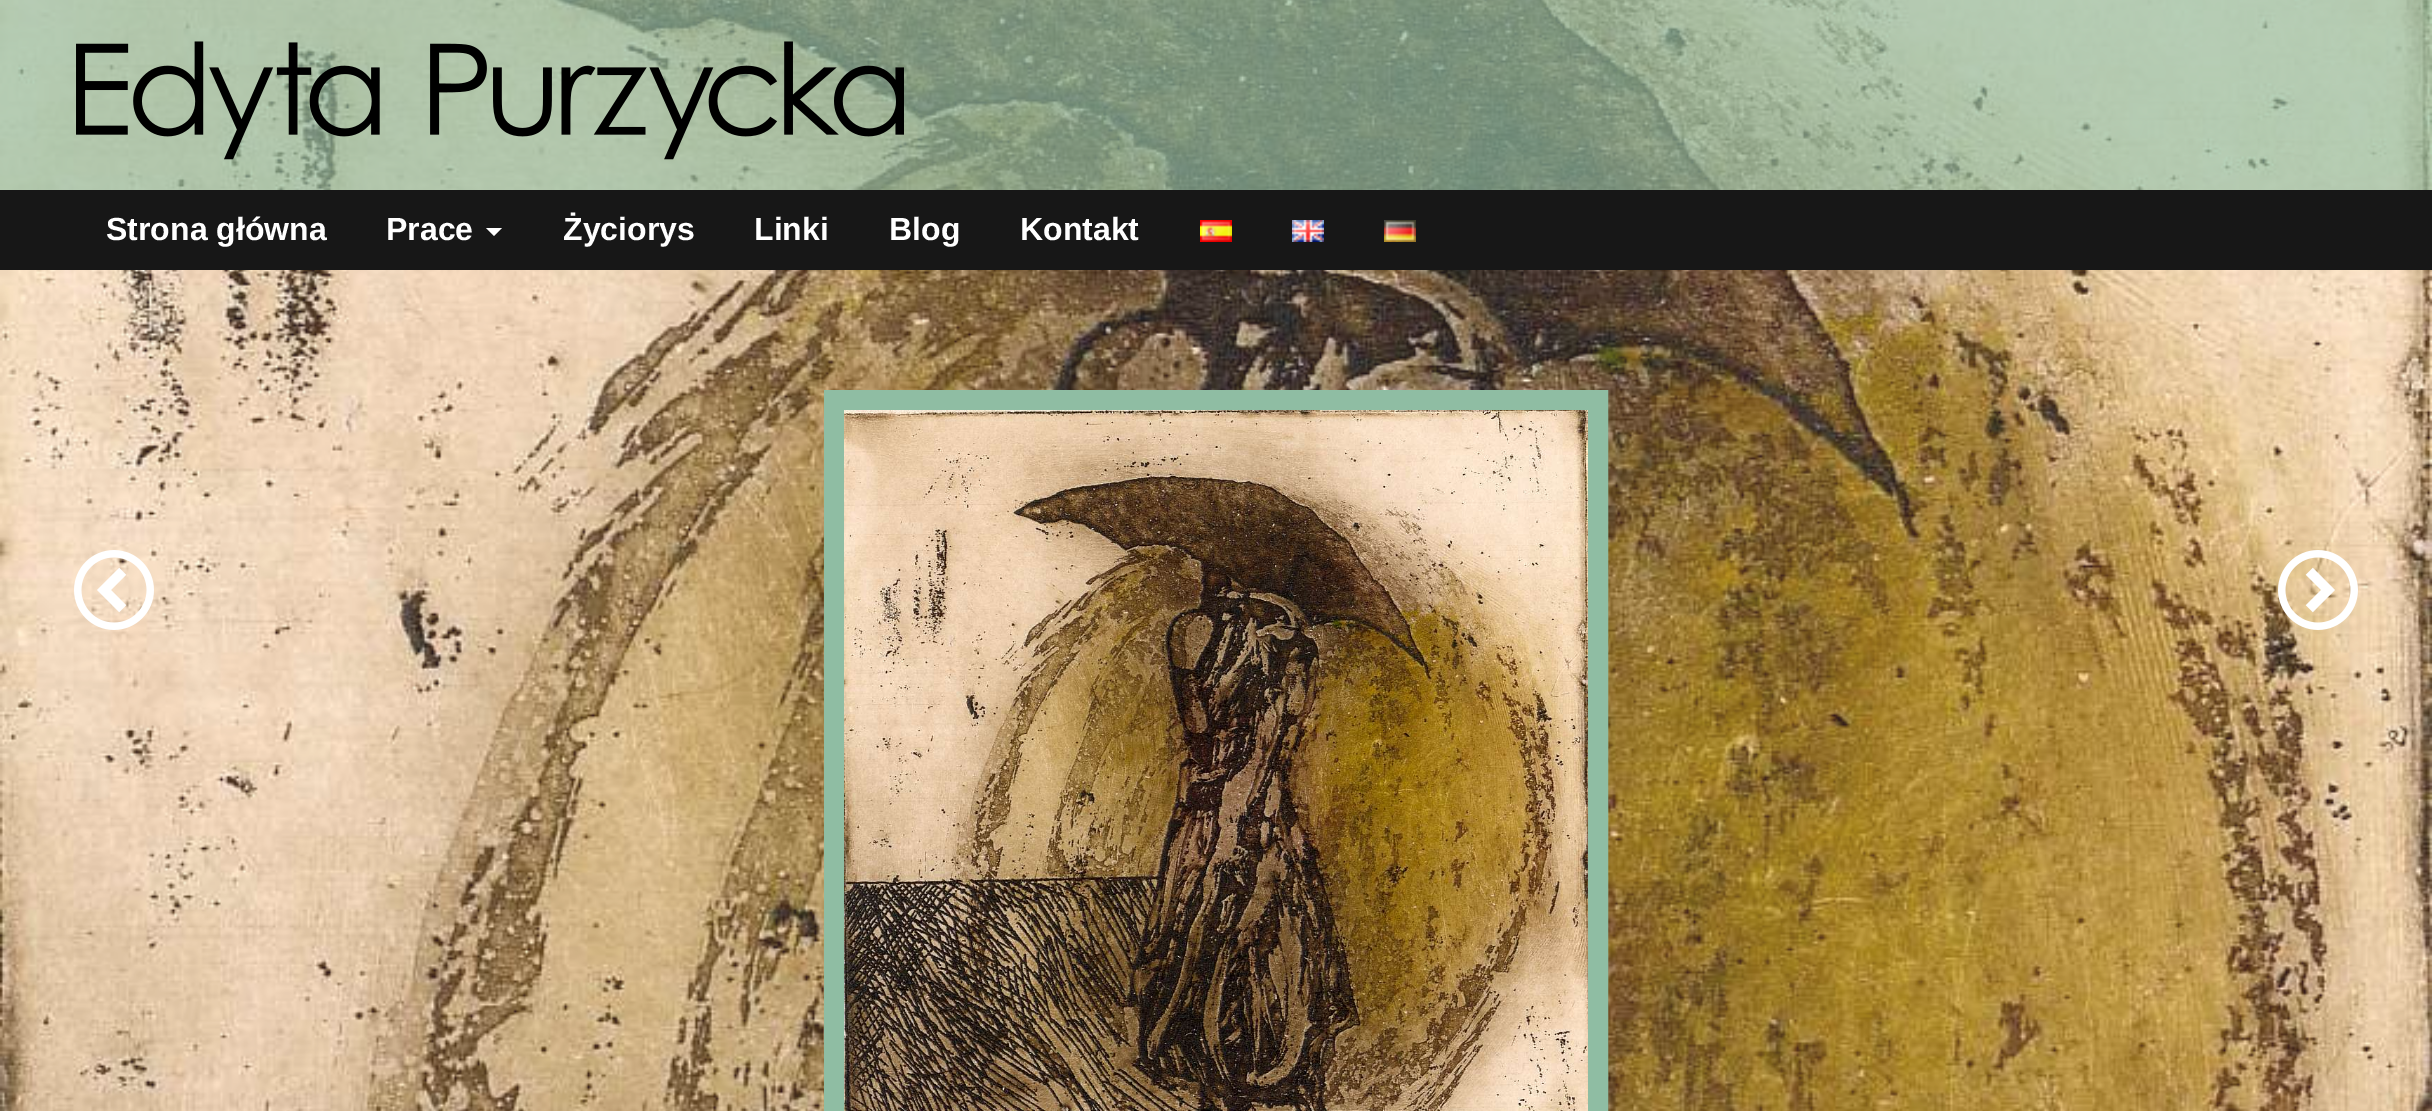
%!PS
<< /PageSize [2432 1111] /PageUsesTransparency true >> setpagedevice
/alpha { dup .setfillconstantalpha .setstrokeconstantalpha } def
/picture { 5 dict begin { /h /w /y /x /name } { exch def } forall
  gsave x y translate w h scale
  w h 8 [w 0 0 h 0 0] name (r) file false 3 colorimage grestore end } def
0 .pushpdf14devicefilter
0 1111 translate 1 -1 scale
4 setmiterlimit
1 setgray
0 0 2432 1111 rectfill
(img1.rgb) 0 0 2432 1111 picture
0.65 alpha
0.561 0.741 0.639 setrgbcolor
0 0 2432 190 rectfill
1 alpha
(img2.rgb) 76 41 828 119 picture
0.09 setgray
0 190 2432 80 rectfill
/LiberationSans-Bold [32 0 0 -32 0 0] selectfont
1 setgray
106 240 moveto (Strona główna) show
386 240 moveto (Prace) show
newpath 486 228 moveto 502 228 lineto 494 236 lineto closepath fill
563 240 moveto (Życiorys) show
754 240 moveto (Linki) show
889 240 moveto (Blog) show
1020 240 moveto (Kontakt) show
(img3.rgb) 1200 220 32 22 picture
(img4.rgb) 1292 220 32 22 picture
(img5.rgb) 1384 220 32 22 picture
(img6.rgb) 74 550 80 80 picture
0.561 0.741 0.639 setrgbcolor
20 setlinewidth
834 400 764 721 rectstroke
(img7.rgb) 844 410 744 701 picture
(img8.rgb) 2278 550 80 80 picture
.poppdf14devicefilter showpage
